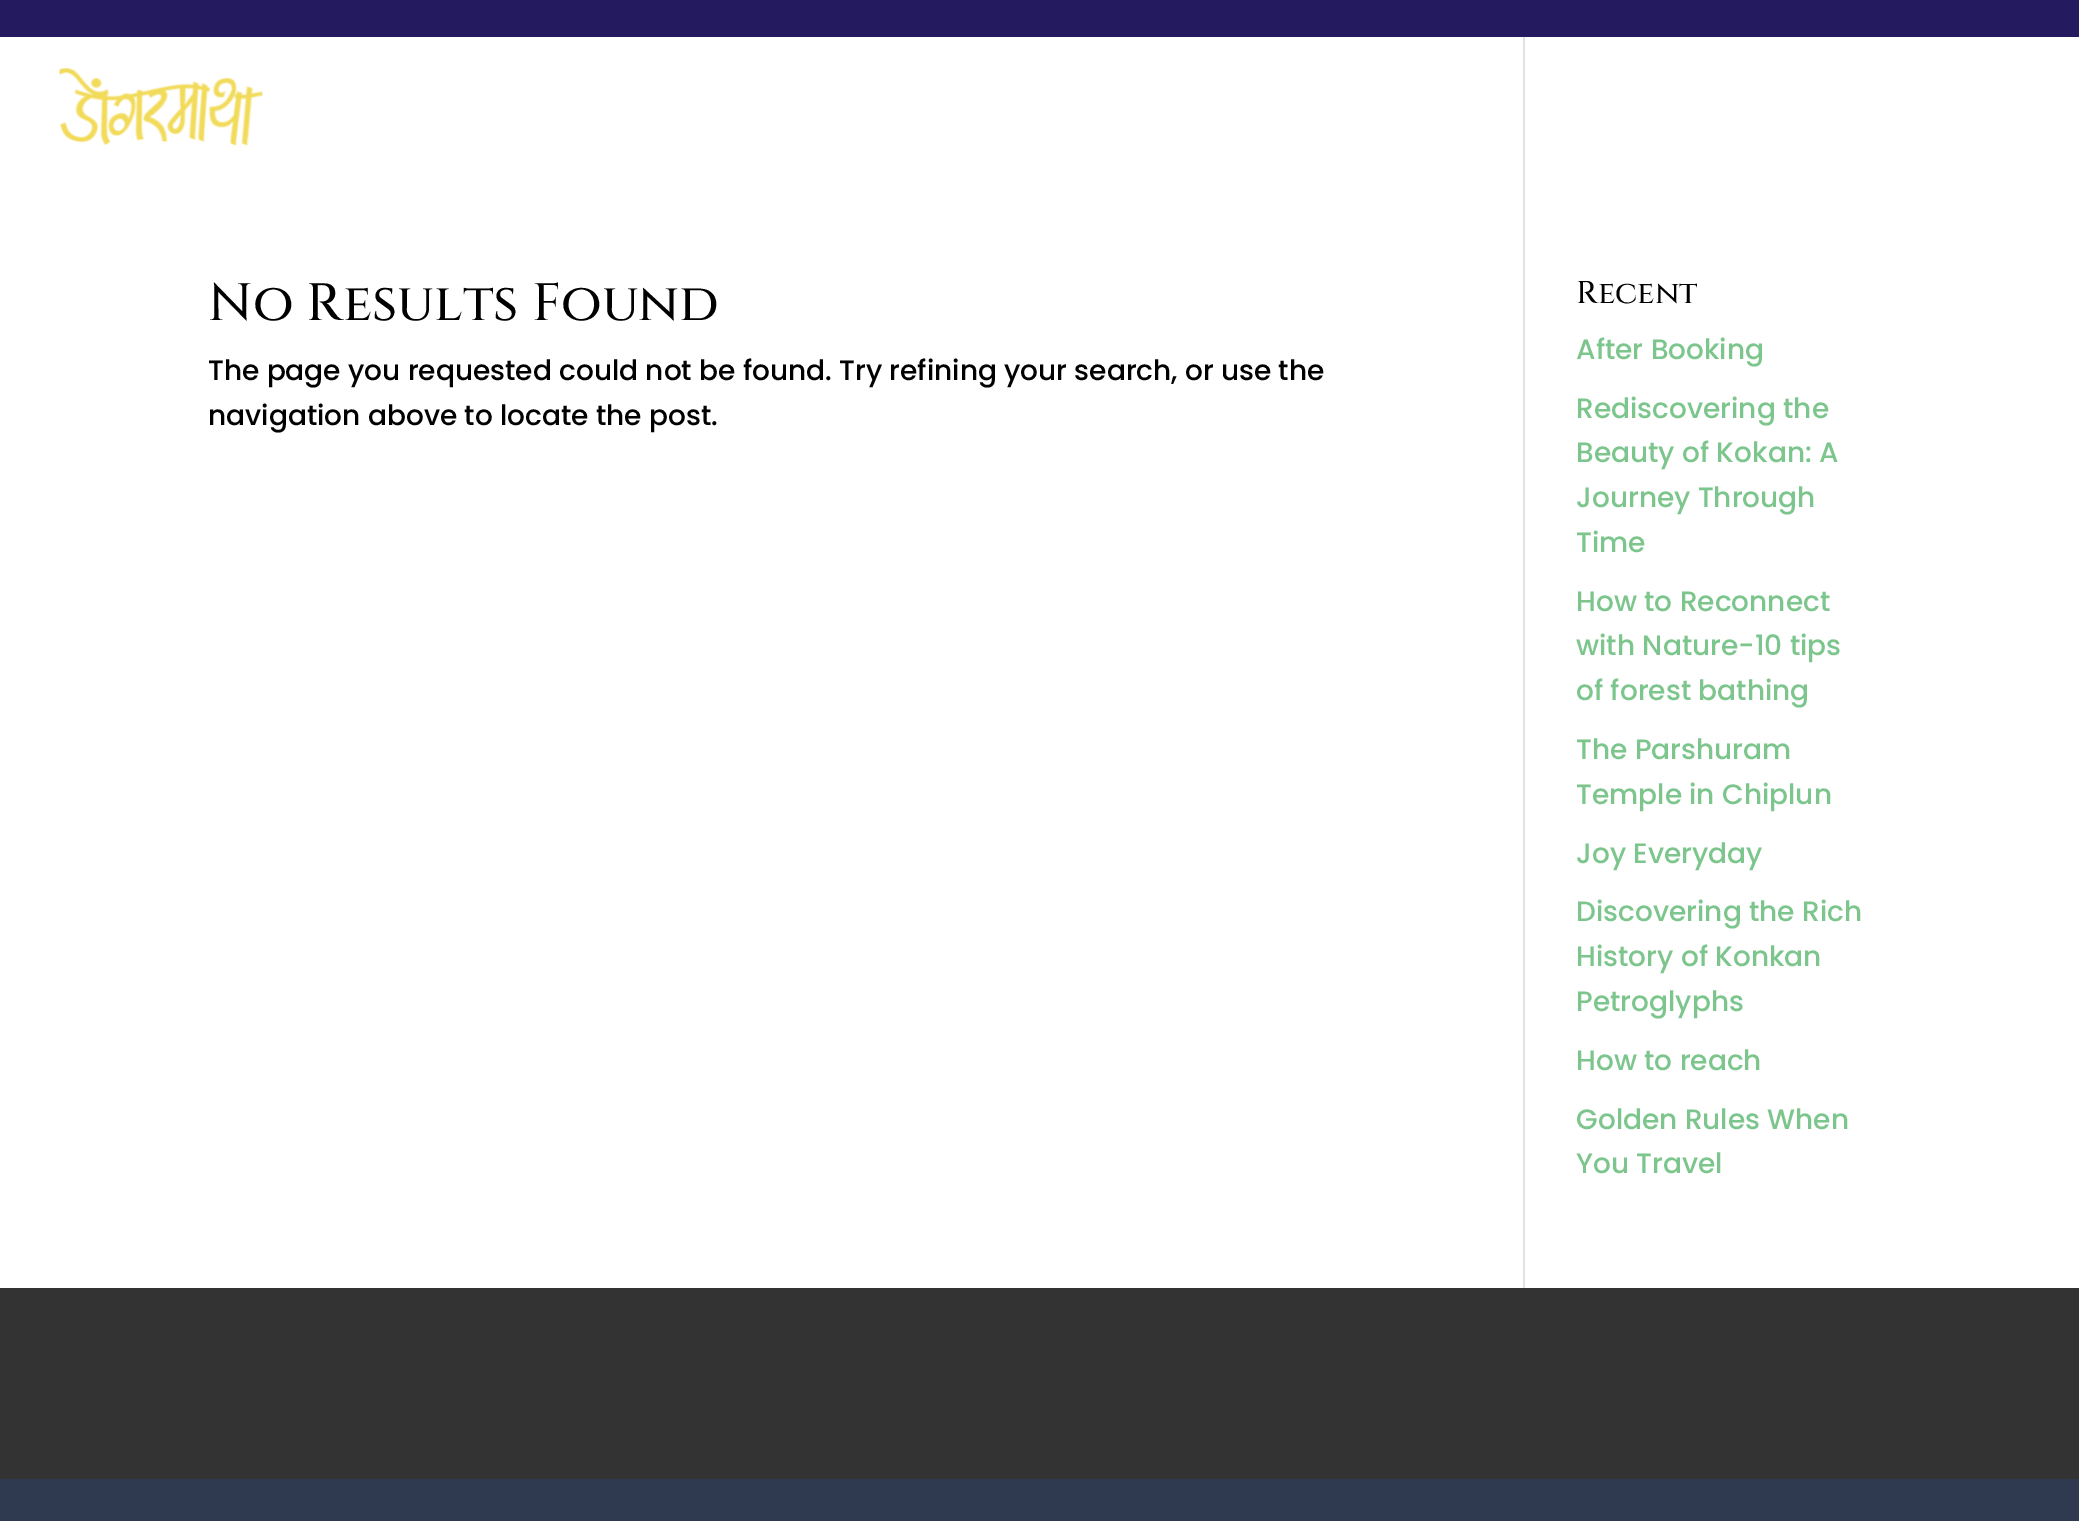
%!PS
<< /PageSize [2079 1521] >> setpagedevice
/picture { 5 dict begin { /h /w /y /x /name } { exch def } forall
  gsave x y translate w h scale
  w h 8 [w 0 0 h 0 0] name (r) file false 3 colorimage grestore end } def
0 1521 translate 1 -1 scale
4 setmiterlimit
1 setgray
0 0 2079 1521 rectfill
0.141 0.102 0.373 setrgbcolor
0 0 2079 37 rectfill
(img1.rgb) 59 68 204 78 picture
0.886 setgray
1523 37 2 1251 rectfill
/Cinzel-Medium [52.5 0 0 -52.5 0 0] selectfont
0 setgray
208 320 moveto (No Results Found) show
/Poppins-Medium [28 0 0 -28 0 0] selectfont
208 380 moveto (The page you requested could not be found. Try refining your search, or use the) show
208 425 moveto (navigation above to locate the post.) show
/Cinzel-Medium [31.5 0 0 -31.5 0 0] selectfont
1576 303 moveto (Recent) show
/Poppins-Medium [28 0 0 -28 0 0] selectfont
0.486 0.776 0.553 setrgbcolor
1576 359 moveto (After Booking) show
1576 418 moveto (Rediscovering the) show
1576 462 moveto (Beauty of Kokan: A) show
1576 507 moveto (Journey Through) show
1576 552 moveto (Time) show
1576 611 moveto (How to Reconnect) show
1576 655 moveto (with Nature-10 tips) show
1576 700 moveto (of forest bathing) show
1576 759 moveto (The Parshuram) show
1576 804 moveto (Temple in Chiplun) show
1576 863 moveto (Joy Everyday) show
1576 921 moveto (Discovering the Rich) show
1576 966 moveto (History of Konkan) show
1576 1011 moveto (Petroglyphs) show
1576 1070 moveto (How to reach) show
1576 1129 moveto (Golden Rules When) show
1576 1173 moveto (You Travel) show
0.2 setgray
0 1288 2079 191 rectfill
0.184 0.224 0.314 setrgbcolor
0 1479 2079 42 rectfill
showpage
